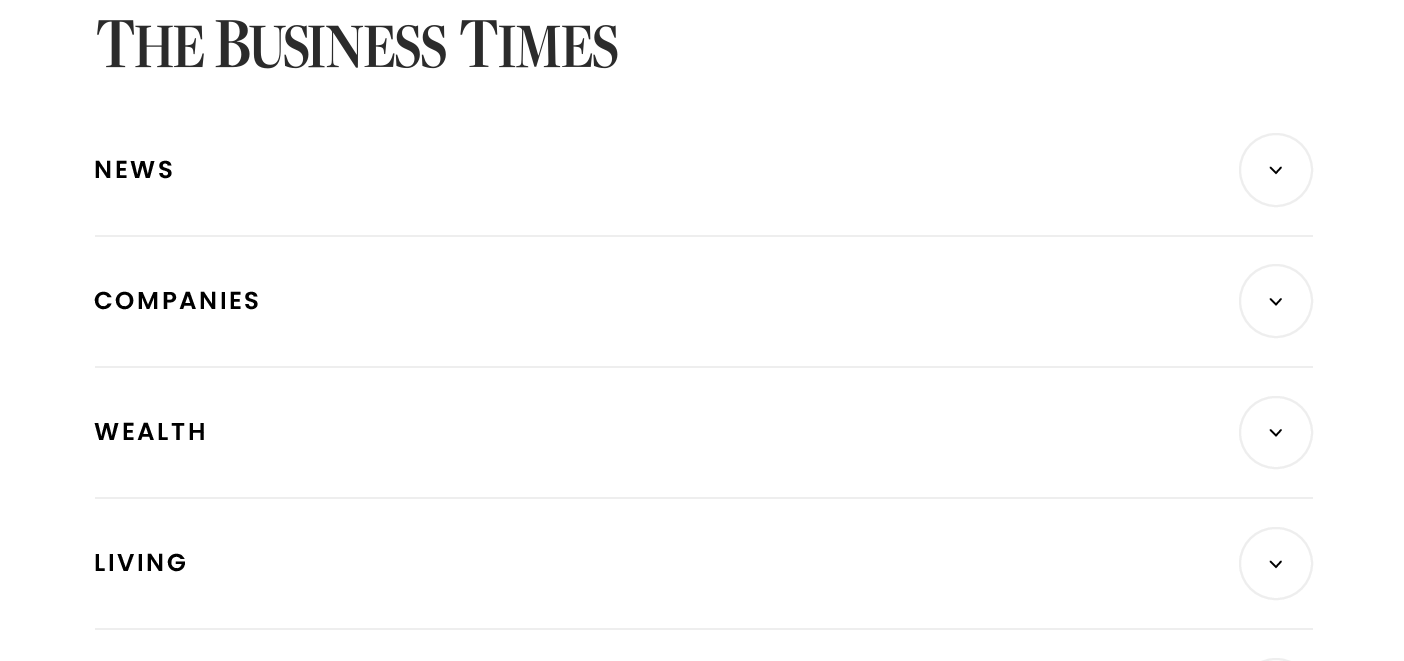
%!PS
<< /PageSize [1404 661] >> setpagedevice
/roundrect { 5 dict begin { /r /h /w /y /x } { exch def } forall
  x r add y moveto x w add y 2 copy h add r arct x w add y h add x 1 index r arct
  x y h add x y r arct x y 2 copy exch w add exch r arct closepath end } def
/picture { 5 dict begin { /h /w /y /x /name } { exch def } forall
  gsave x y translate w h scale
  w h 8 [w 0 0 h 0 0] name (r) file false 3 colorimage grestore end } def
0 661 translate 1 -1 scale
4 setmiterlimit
1 setgray
0 0 1404 661 rectfill
(img1.rgb) 97 20 521 49 picture
0.933 setgray
95 235 1218 2 rectfill
/Poppins-SemiBold [24.5 0 0 -24.5 0 0] selectfont
0 setgray
94 178 moveto 2.5 0 (NEWS) ashow
0.933 setgray
2 setlinewidth
newpath 1276 170 36 0 360 arc closepath stroke
0 setgray
1.6 setlinewidth
1 setlinecap
newpath 1270.5 167.5 moveto 1276 173 lineto 1281 167.5 lineto stroke
0.933 setgray
95 366 1218 2 rectfill
0 setgray
94 309 moveto 2.5 0 (COMPANIES) ashow
0.933 setgray
2 setlinewidth
0 setlinecap
newpath 1276 301 36 0 360 arc closepath stroke
0 setgray
1.6 setlinewidth
1 setlinecap
newpath 1270.5 299 moveto 1276 304.5 lineto 1281 299 lineto stroke
0.933 setgray
95 497 1218 2 rectfill
0 setgray
94 440 moveto 2.5 0 (WEALTH) ashow
0.933 setgray
2 setlinewidth
0 setlinecap
1240 397 72 71 35.5 roundrect stroke
0 setgray
1.6 setlinewidth
1 setlinecap
newpath 1270.5 430 moveto 1276 435.5 lineto 1281 430 lineto stroke
0.933 setgray
95 628 1218 2 rectfill
0 setgray
94 571 moveto 2.5 0 (LIVING) ashow
0.933 setgray
2 setlinewidth
0 setlinecap
1240 528 72 71 35.5 roundrect stroke
0 setgray
1.6 setlinewidth
1 setlinecap
newpath 1270.5 561.5 moveto 1276 567 lineto 1281 561.5 lineto stroke
0.933 setgray
2 setlinewidth
0 setlinecap
1240 659 72 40 36 roundrect stroke
showpage
